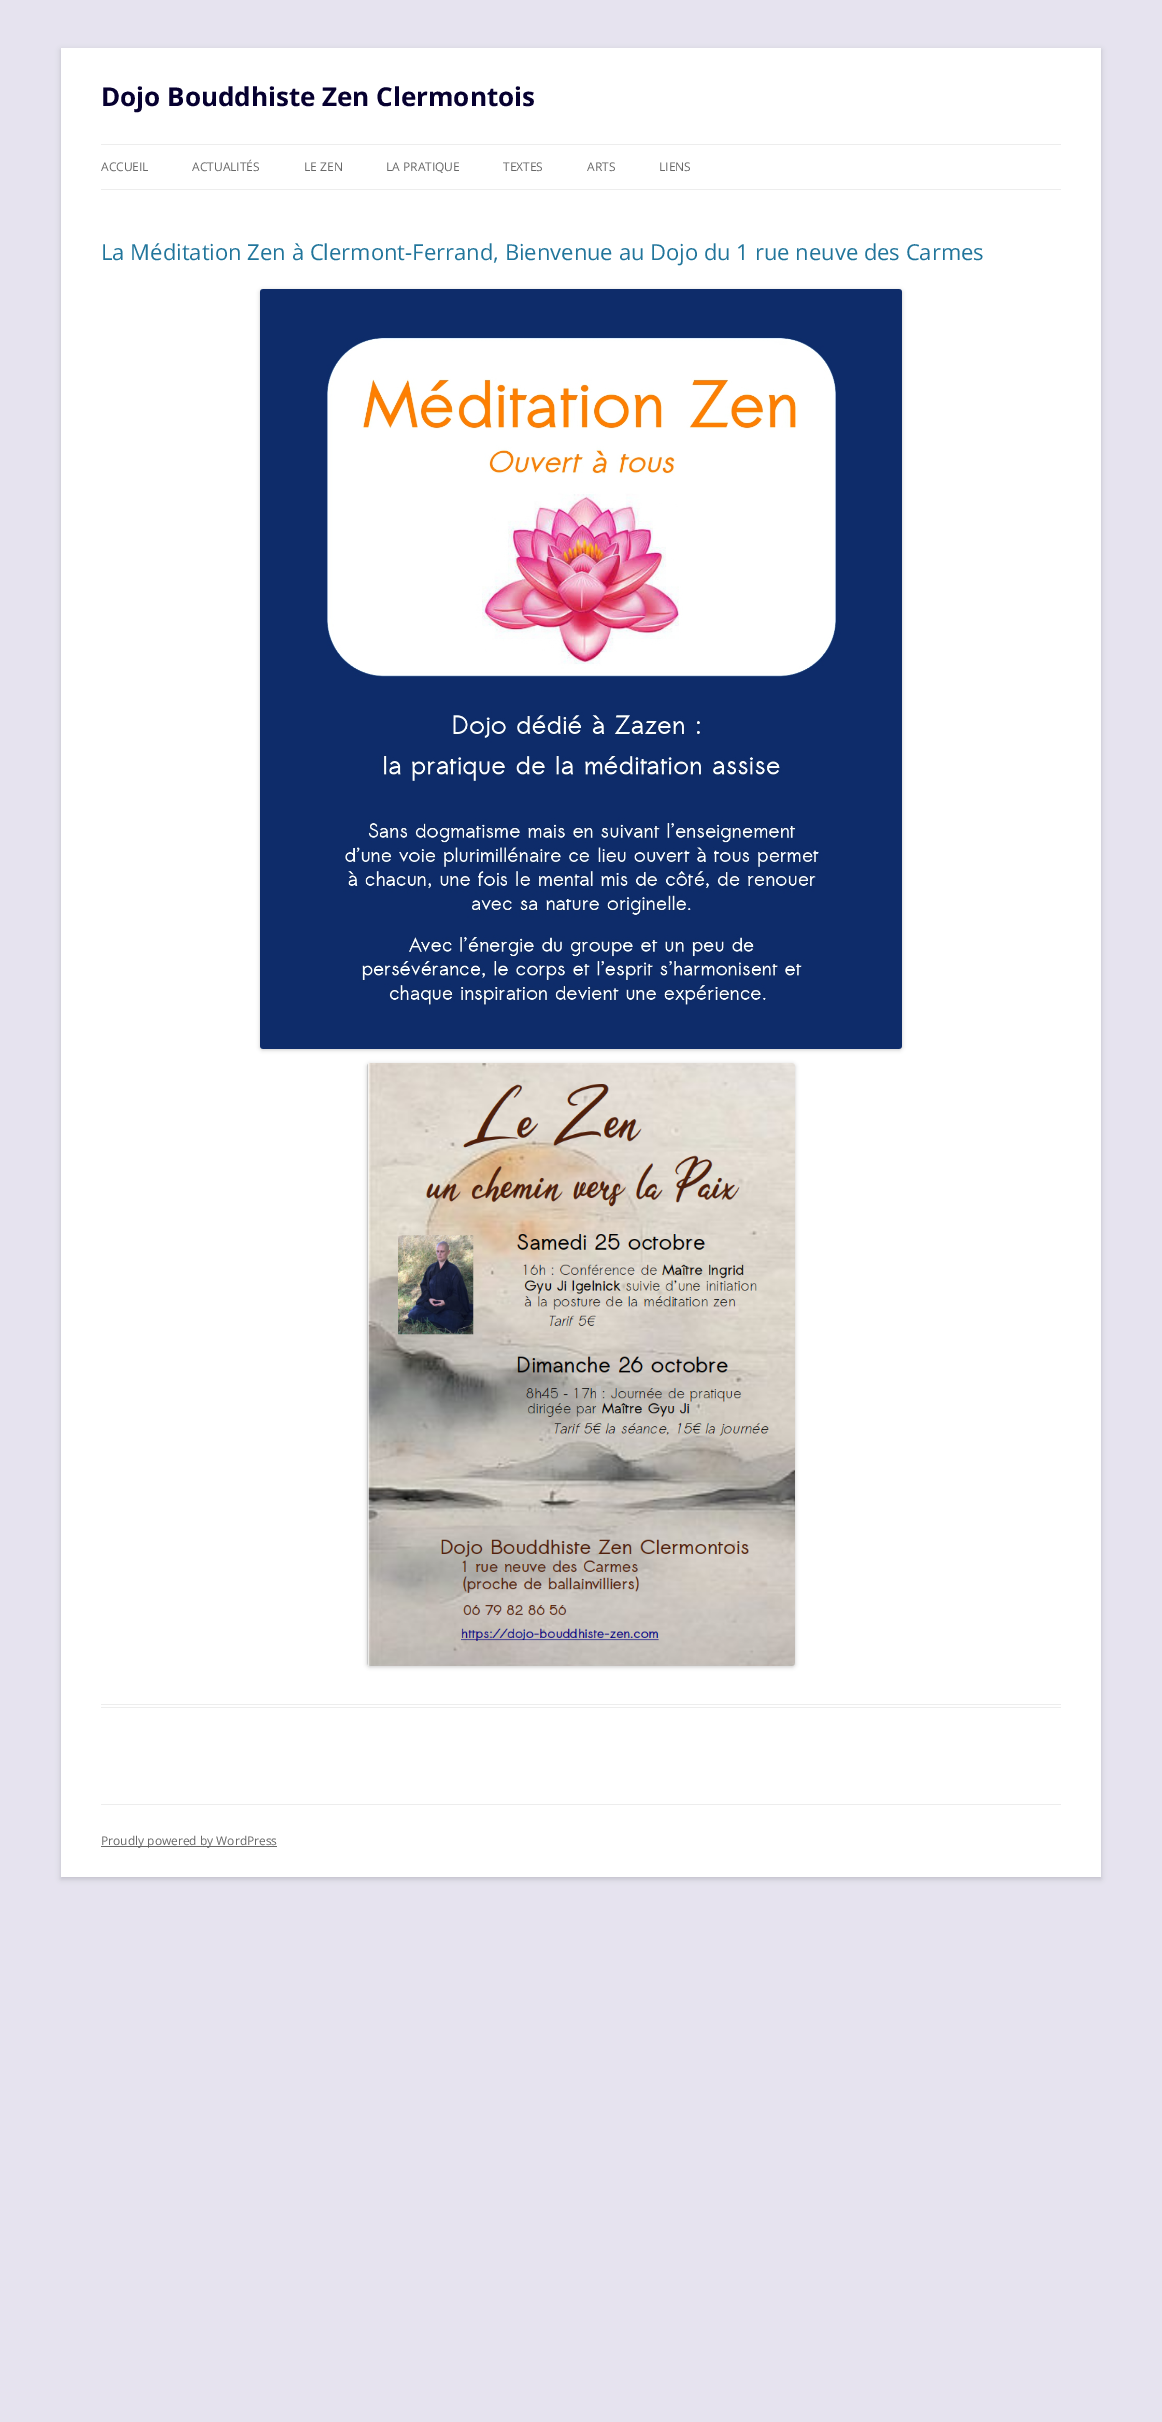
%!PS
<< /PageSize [1162 2422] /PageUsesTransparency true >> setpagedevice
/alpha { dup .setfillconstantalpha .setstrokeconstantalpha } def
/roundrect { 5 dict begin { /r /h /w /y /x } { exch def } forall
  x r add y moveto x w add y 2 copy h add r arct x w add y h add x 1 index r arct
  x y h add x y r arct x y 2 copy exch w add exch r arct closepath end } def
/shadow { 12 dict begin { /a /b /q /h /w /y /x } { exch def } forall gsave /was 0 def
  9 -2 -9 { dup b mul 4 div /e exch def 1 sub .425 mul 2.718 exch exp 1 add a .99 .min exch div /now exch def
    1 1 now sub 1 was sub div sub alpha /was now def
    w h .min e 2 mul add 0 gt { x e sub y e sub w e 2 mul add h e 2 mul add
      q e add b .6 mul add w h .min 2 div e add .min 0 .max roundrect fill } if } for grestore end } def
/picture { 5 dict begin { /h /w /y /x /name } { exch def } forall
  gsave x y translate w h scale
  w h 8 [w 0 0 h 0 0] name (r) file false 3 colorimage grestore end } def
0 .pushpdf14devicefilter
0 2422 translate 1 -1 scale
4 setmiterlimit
0.902 0.89 0.937 setrgbcolor
0 0 1162 2422 rectfill
0.392 setgray
61 50 1040 1829 0 3 0.3 shadow
1 setgray
61 48 1040 1829 rectfill
/OpenSans-Bold [26 0 0 -26 0 0] selectfont
0.024 0 0.188 setrgbcolor
101 106 moveto (Dojo Bouddhiste Zen Clermontois) show
0.929 setgray
101 144 960 1 rectfill
101 189 960 1 rectfill
/OpenSans-Regular [12 0 0 -12 0 0] selectfont
0.408 setgray
101 171 moveto (ACCUEIL) show
192 171 moveto (ACTUALITÉS) show
304 171 moveto (LE ZEN) show
386 171 moveto (LA PRATIQUE) show
503 171 moveto (TEXTES) show
587 171 moveto (ARTS) show
659 171 moveto (LIENS) show
0.929 setgray
101 1704 960 1 rectfill
101 1707 960 1 rectfill
/OpenSans-Regular [22 0 0 -22 0 0] selectfont
0.129 0.459 0.608 setrgbcolor
101 260 moveto (La Méditation Zen à Clermont-Ferrand, Bienvenue au Dojo du 1 rue neuve des Carmes) show
0 setgray
260 290 642 760 3 2 0.2 shadow
(img1.rgb) 260 289 642 760 picture
367 1064 428 603 3 2 0.2 shadow
(img2.rgb) 367 1063 428 603 picture
0.929 setgray
101 1804 960 1 rectfill
0.408 setgray
101 1846 176 1 rectfill
/OpenSans-Regular [12 0 0 -12 0 0] selectfont
101 1845 moveto (Proudly powered by WordPress) show
.poppdf14devicefilter showpage
